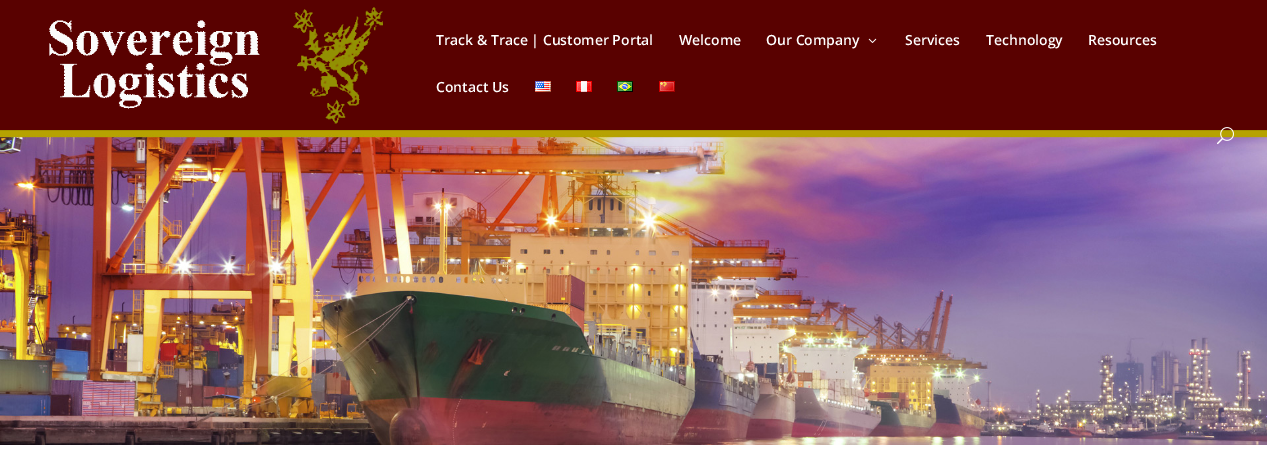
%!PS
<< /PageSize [1267 464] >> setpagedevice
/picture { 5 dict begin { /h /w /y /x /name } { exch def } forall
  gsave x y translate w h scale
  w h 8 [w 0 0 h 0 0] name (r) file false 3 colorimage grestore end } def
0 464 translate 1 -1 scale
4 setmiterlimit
0.349 0.004 0 setrgbcolor
0 0 1267 464 rectfill
0.643 0.573 0.004 setrgbcolor
0 130 1267 1 rectfill
(img1.rgb) 49 7 334 117 picture
/OpenSans-SemiBold [14 0 0 -14 0 0] selectfont
1 setgray
436 45 moveto (Track & Trace | Customer Portal) show
679 45 moveto (Welcome) show
766 45 moveto (Our Company) show
(img2.rgb) 868 38 9 5 picture
905 45 moveto (Services) show
986 45 moveto (Technology) show
1088 45 moveto (Resources) show
436 92 moveto (Contact Us) show
(img3.rgb) 535 81 16 11 picture
(img4.rgb) 576 81 16 11 picture
(img5.rgb) 617 81 16 11 picture
(img6.rgb) 659 81 16 11 picture
(img8.rgb) 0 131 1267 314 picture
(img7.rgb) 1217 127 17 18 picture
0 445 1267 19 rectfill
showpage
